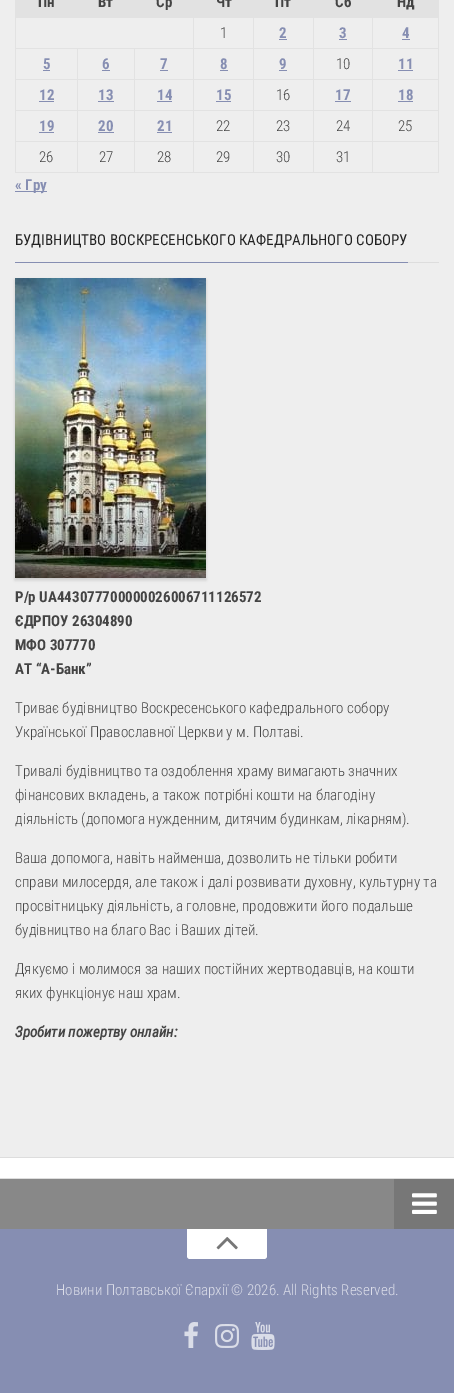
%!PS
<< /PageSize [454 1393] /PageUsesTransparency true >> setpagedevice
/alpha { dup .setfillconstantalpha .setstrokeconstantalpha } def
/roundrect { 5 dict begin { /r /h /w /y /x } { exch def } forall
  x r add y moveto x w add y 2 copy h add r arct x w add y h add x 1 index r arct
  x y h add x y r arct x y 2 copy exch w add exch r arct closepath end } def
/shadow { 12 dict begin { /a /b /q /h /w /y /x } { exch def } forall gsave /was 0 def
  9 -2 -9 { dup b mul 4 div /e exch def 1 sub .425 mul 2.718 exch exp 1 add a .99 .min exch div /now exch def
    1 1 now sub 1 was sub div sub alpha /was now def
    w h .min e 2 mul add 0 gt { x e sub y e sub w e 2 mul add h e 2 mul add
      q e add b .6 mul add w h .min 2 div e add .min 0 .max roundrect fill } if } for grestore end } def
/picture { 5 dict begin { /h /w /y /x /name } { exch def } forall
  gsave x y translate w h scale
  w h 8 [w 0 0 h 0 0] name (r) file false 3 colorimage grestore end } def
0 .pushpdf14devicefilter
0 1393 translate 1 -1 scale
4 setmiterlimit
0.933 setgray
0 0 454 1393 rectfill
0.886 setgray
16 0 423 17 rectfill
/RobotoCondensed-Bold [15 0 0 -15 0 0] selectfont
0.267 setgray
38 7 moveto (Пн) show
98 7 moveto (Вт) show
156 7 moveto (Ср) show
216 7 moveto (Чт) show
275 7 moveto (Пт) show
335 7 moveto (Сб) show
397 7 moveto (Нд) show
0.886 setgray
372 17 67 1 rectfill
372 48 67 1 rectfill
372 79 67 1 rectfill
372 110 67 1 rectfill
372 141 67 1 rectfill
438 141 1 32 rectfill
372 172 67 1 rectfill
372 141 1 32 rectfill
313 141 60 1 rectfill
372 110 1 32 rectfill
313 110 60 1 rectfill
372 79 1 32 rectfill
313 79 60 1 rectfill
372 48 1 32 rectfill
313 48 60 1 rectfill
372 17 1 32 rectfill
313 17 60 1 rectfill
313 172 60 1 rectfill
313 141 1 32 rectfill
253 141 61 1 rectfill
313 110 1 32 rectfill
253 110 61 1 rectfill
313 79 1 32 rectfill
253 79 61 1 rectfill
313 48 1 32 rectfill
253 48 61 1 rectfill
313 17 1 32 rectfill
253 17 61 1 rectfill
253 172 61 1 rectfill
253 141 1 32 rectfill
193 141 61 1 rectfill
253 110 1 32 rectfill
193 110 61 1 rectfill
253 79 1 32 rectfill
193 79 61 1 rectfill
253 48 1 32 rectfill
193 48 61 1 rectfill
253 17 1 32 rectfill
193 17 61 1 rectfill
193 172 61 1 rectfill
193 141 1 32 rectfill
134 141 60 1 rectfill
193 110 1 32 rectfill
134 110 60 1 rectfill
193 79 1 32 rectfill
134 79 60 1 rectfill
193 48 1 32 rectfill
134 48 60 1 rectfill
193 17 1 32 rectfill
15 17 179 1 rectfill
134 172 60 1 rectfill
134 141 1 32 rectfill
77 141 58 1 rectfill
134 110 1 32 rectfill
77 110 58 1 rectfill
134 79 1 32 rectfill
77 79 58 1 rectfill
134 48 1 32 rectfill
77 48 58 1 rectfill
77 172 58 1 rectfill
77 141 1 32 rectfill
15 141 63 1 rectfill
77 110 1 32 rectfill
15 110 63 1 rectfill
77 79 1 32 rectfill
15 79 63 1 rectfill
77 48 1 32 rectfill
15 48 63 1 rectfill
15 172 63 1 rectfill
15 141 1 32 rectfill
15 110 1 32 rectfill
15 79 1 32 rectfill
15 48 1 32 rectfill
15 0 1 49 rectfill
/RobotoCondensed-Light [15 0 0 -15 0 0] selectfont
0.267 setgray
220 38 moveto (1) show
/RobotoCondensed-Bold [15 0 0 -15 0 0] selectfont
0.525 0.557 0.698 setrgbcolor
279 38 moveto (2) show
279 39 8 1 rectfill
339 38 moveto (3) show
339 39 8 1 rectfill
0.886 setgray
438 110 1 32 rectfill
438 79 1 32 rectfill
438 48 1 32 rectfill
438 17 1 32 rectfill
0.525 0.557 0.698 setrgbcolor
402 38 moveto (4) show
402 39 8 1 rectfill
43 69 moveto (5) show
43 70 7 1 rectfill
102 69 moveto (6) show
102 70 8 1 rectfill
160 69 moveto (7) show
160 70 8 1 rectfill
220 69 moveto (8) show
220 70 8 1 rectfill
279 69 moveto (9) show
279 70 8 1 rectfill
/RobotoCondensed-Light [15 0 0 -15 0 0] selectfont
0.267 setgray
336 69 moveto (10) show
/RobotoCondensed-Bold [15 0 0 -15 0 0] selectfont
0.525 0.557 0.698 setrgbcolor
398 69 moveto (11) show
398 70 15 1 rectfill
39 100 moveto (12) show
39 101 15 1 rectfill
98 100 moveto (13) show
98 101 16 1 rectfill
157 100 moveto (14) show
157 101 15 1 rectfill
216 100 moveto (15) show
216 101 15 1 rectfill
/RobotoCondensed-Light [15 0 0 -15 0 0] selectfont
0.267 setgray
276 100 moveto (16) show
/RobotoCondensed-Bold [15 0 0 -15 0 0] selectfont
0.525 0.557 0.698 setrgbcolor
335 100 moveto (17) show
335 101 16 1 rectfill
398 100 moveto (18) show
398 101 15 1 rectfill
39 131 moveto (19) show
39 132 15 1 rectfill
98 131 moveto (20) show
98 132 16 1 rectfill
157 131 moveto (21) show
157 132 15 1 rectfill
/RobotoCondensed-Light [15 0 0 -15 0 0] selectfont
0.267 setgray
216 131 moveto (22) show
276 131 moveto (23) show
336 131 moveto (24) show
398 131 moveto (25) show
39 162 moveto (26) show
99 162 moveto (27) show
157 162 moveto (28) show
216 162 moveto (29) show
276 162 moveto (30) show
336 162 moveto (31) show
0.525 0.557 0.698 setrgbcolor
15 191 32 1 rectfill
/RobotoCondensed-Bold [15 0 0 -15 0 0] selectfont
15 190 moveto (« Гру) show
0.867 setgray
408 262 31 1 rectfill
0.525 0.557 0.698 setrgbcolor
15 262 393 1 rectfill
/RobotoCondensed-Regular [15 0 0 -15 0 0] selectfont
0.133 setgray
15 245 moveto (БУДІВНИЦТВО ВОСКРЕСЕНСЬКОГО КАФЕДРАЛЬНОГО СОБОРУ) show
0 setgray
15 280 191 300 0 1.5 0.15 shadow
(img1.rgb) 15 278 191 300 picture
/RobotoCondensed-Bold [15 0 0 -15 0 0] selectfont
0.267 setgray
15 602 moveto (Р/р UA443077700000026006711126572) show
15 626 moveto (ЄДРПОУ 26304890) show
15 650 moveto (МФО 307770) show
15 674 moveto (АТ “А-Банк”) show
/RobotoCondensed-Light [15 0 0 -15 0 0] selectfont
15 713 moveto (Триває будівництво Воскресенського кафедрального собору) show
15 737 moveto (Української Православної Церкви у м. Полтаві.) show
15 776 moveto (Тривалі будівництво та оздоблення храму вимагають значних) show
15 800 moveto (фінансових вкладень, а також потрібні кошти на благодіну) show
15 824 moveto (діяльність \(допомога нужденним, дитячим будинкам, лікарням\).) show
15 863 moveto (Ваша допомога, навіть найменша, дозволить не тільки робити) show
15 887 moveto (справи милосердя, але також і далі розвивати духовну, культурну та) show
15 911 moveto (просвітницьку діяльність, а головне, продовжити його подальше) show
15 935 moveto (будівництво на благо Вас і Ваших дітей.) show
15 974 moveto (Дякуємо і молимося за наших постійних жертводавців, на кошти) show
15 998 moveto (яких функціонує наш храм.) show
/RobotoCondensed-BoldItalic [15 0 0 -15 0 0] selectfont
15 1037 moveto (Зробити пожертву онлайн:) show
1 setgray
0 1158 454 20 rectfill
0.867 setgray
0 1157 454 1 rectfill
0 1178 454 1 rectfill
0.533 setgray
0 1179 394 50 rectfill
0.467 setgray
394 1179 60 50 rectfill
(img2.rgb) 412 1193 25 21 picture
0.525 0.557 0.698 setrgbcolor
0 1229 454 164 rectfill
1 setgray
newpath 187 1229 moveto 267 1229 lineto 267 1256 lineto 267 1257.5 265.5 1259 264 1259 curveto 190 1259 lineto 188.5 1259 187 1257.5 187 1256 curveto closepath fill
(img3.rgb) 216 1237 22 13 picture
/RobotoCondensed-Light [15 0 0 -15 0 0] selectfont
0.859 0.867 0.91 setrgbcolor
56 1295 moveto (Новини Полтавської Єпархії © 2026. All Rights Reserved.) show
(img4.rgb) 184 1322 14 26 picture
(img5.rgb) 215 1324 24 24 picture
(img6.rgb) 251 1322 24 28 picture
.poppdf14devicefilter showpage
